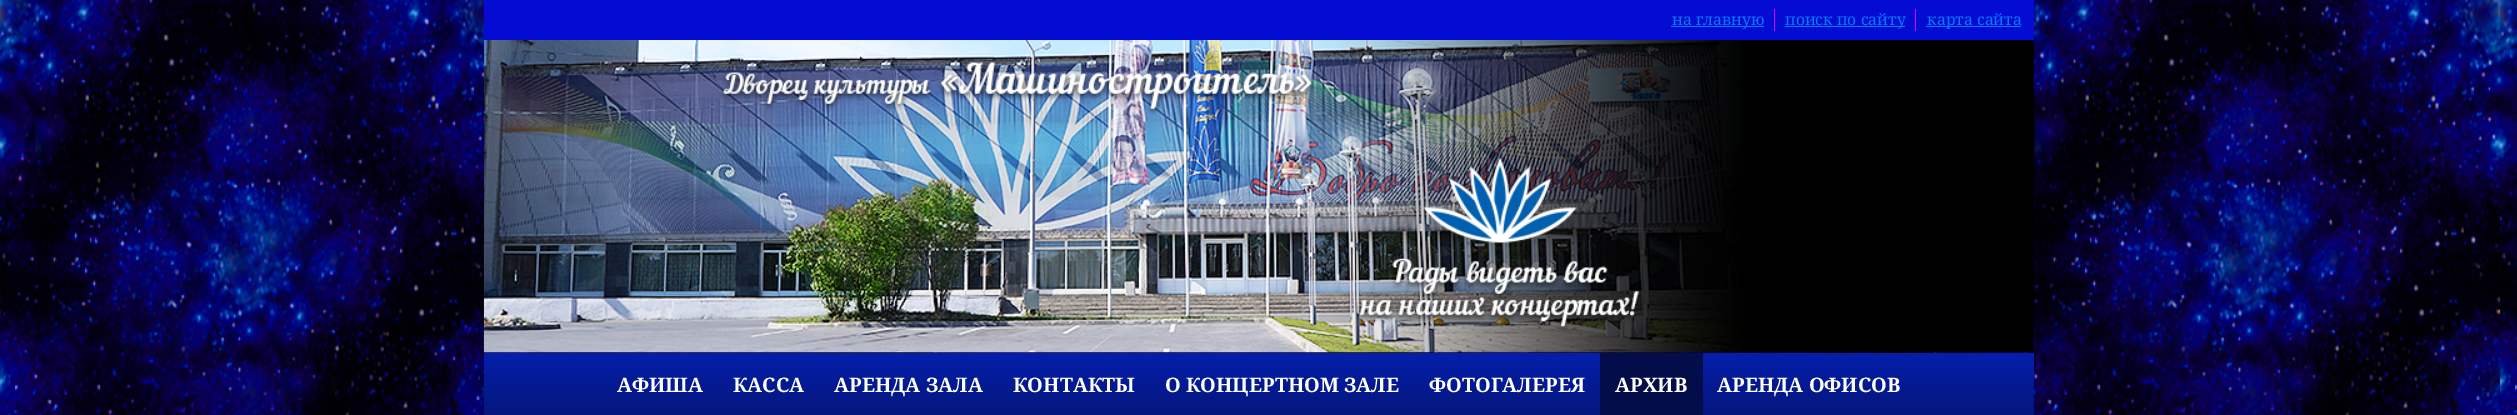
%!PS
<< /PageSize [2517 415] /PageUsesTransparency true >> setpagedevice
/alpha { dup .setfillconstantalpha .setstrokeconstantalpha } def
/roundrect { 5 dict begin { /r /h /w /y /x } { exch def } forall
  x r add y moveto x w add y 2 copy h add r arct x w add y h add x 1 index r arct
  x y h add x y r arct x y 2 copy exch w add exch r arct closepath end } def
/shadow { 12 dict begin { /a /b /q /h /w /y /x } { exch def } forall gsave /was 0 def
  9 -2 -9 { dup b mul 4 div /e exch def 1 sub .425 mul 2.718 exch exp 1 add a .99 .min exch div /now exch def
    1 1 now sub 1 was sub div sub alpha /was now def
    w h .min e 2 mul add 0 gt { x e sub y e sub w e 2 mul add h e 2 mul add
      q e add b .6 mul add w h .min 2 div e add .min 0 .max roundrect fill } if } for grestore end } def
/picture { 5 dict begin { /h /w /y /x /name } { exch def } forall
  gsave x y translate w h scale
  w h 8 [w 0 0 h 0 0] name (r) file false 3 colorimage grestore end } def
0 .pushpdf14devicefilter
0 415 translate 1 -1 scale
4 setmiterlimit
1 setgray
0 0 2517 415 rectfill
(img1.rgb) 0 0 2517 415 picture
0.016 0.043 0.824 setrgbcolor
484 0 1550 40 rectfill
0.008 0.49 0.969 setrgbcolor
1671 26 93 1 rectfill
/NotoSerif-Regular [15.75 0 0 -15.75 0 0] selectfont
1672 25 moveto (на главную) show
0.863 0 0.961 setrgbcolor
1774 9 1 22 rectfill
0.008 0.49 0.969 setrgbcolor
1785 26 120 1 rectfill
1785 25 moveto (поиск по сайту) show
0.863 0 0.961 setrgbcolor
1915 9 1 22 rectfill
0.008 0.49 0.969 setrgbcolor
1926 26 95 1 rectfill
1927 25 moveto (карта сайта) show
(img2.rgb) 483 40 1551 313 picture
0.024 0.016 0.486 setrgbcolor
465 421 1588 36 15 9 1 shadow
gsave newpath 484 353 moveto 2034 353 lineto 2034 415 lineto 484 415 lineto closepath clip newpath
<< /ShadingType 2 /ColorSpace /DeviceRGB /Coords [1259 352 1259 415] /Extend [true true] /Function << /FunctionType 2 /Domain [0 1] /C0 [0.02 0.122 0.678] /C1 [0.016 0.086 0.486] /N 1 >> >> shfill grestore
/NotoSerif-Bold [20 0 0 -20 0 0] selectfont
1 setgray
617 392 moveto (АФИША) show
733 392 moveto (КАССА) show
834 392 moveto (АРЕНДА ЗАЛА) show
1013 392 moveto (КОНТАКТЫ) show
1165 392 moveto (О КОНЦЕРТНОМ ЗАЛЕ) show
1429 392 moveto (ФОТОГАЛЕРЕЯ) show
0.008 0.051 0.29 setrgbcolor
1600 353 103 62 rectfill
1 setgray
1615 392 moveto (АРХИВ) show
1717 392 moveto (АРЕНДА ОФИСОВ) show
.poppdf14devicefilter showpage
